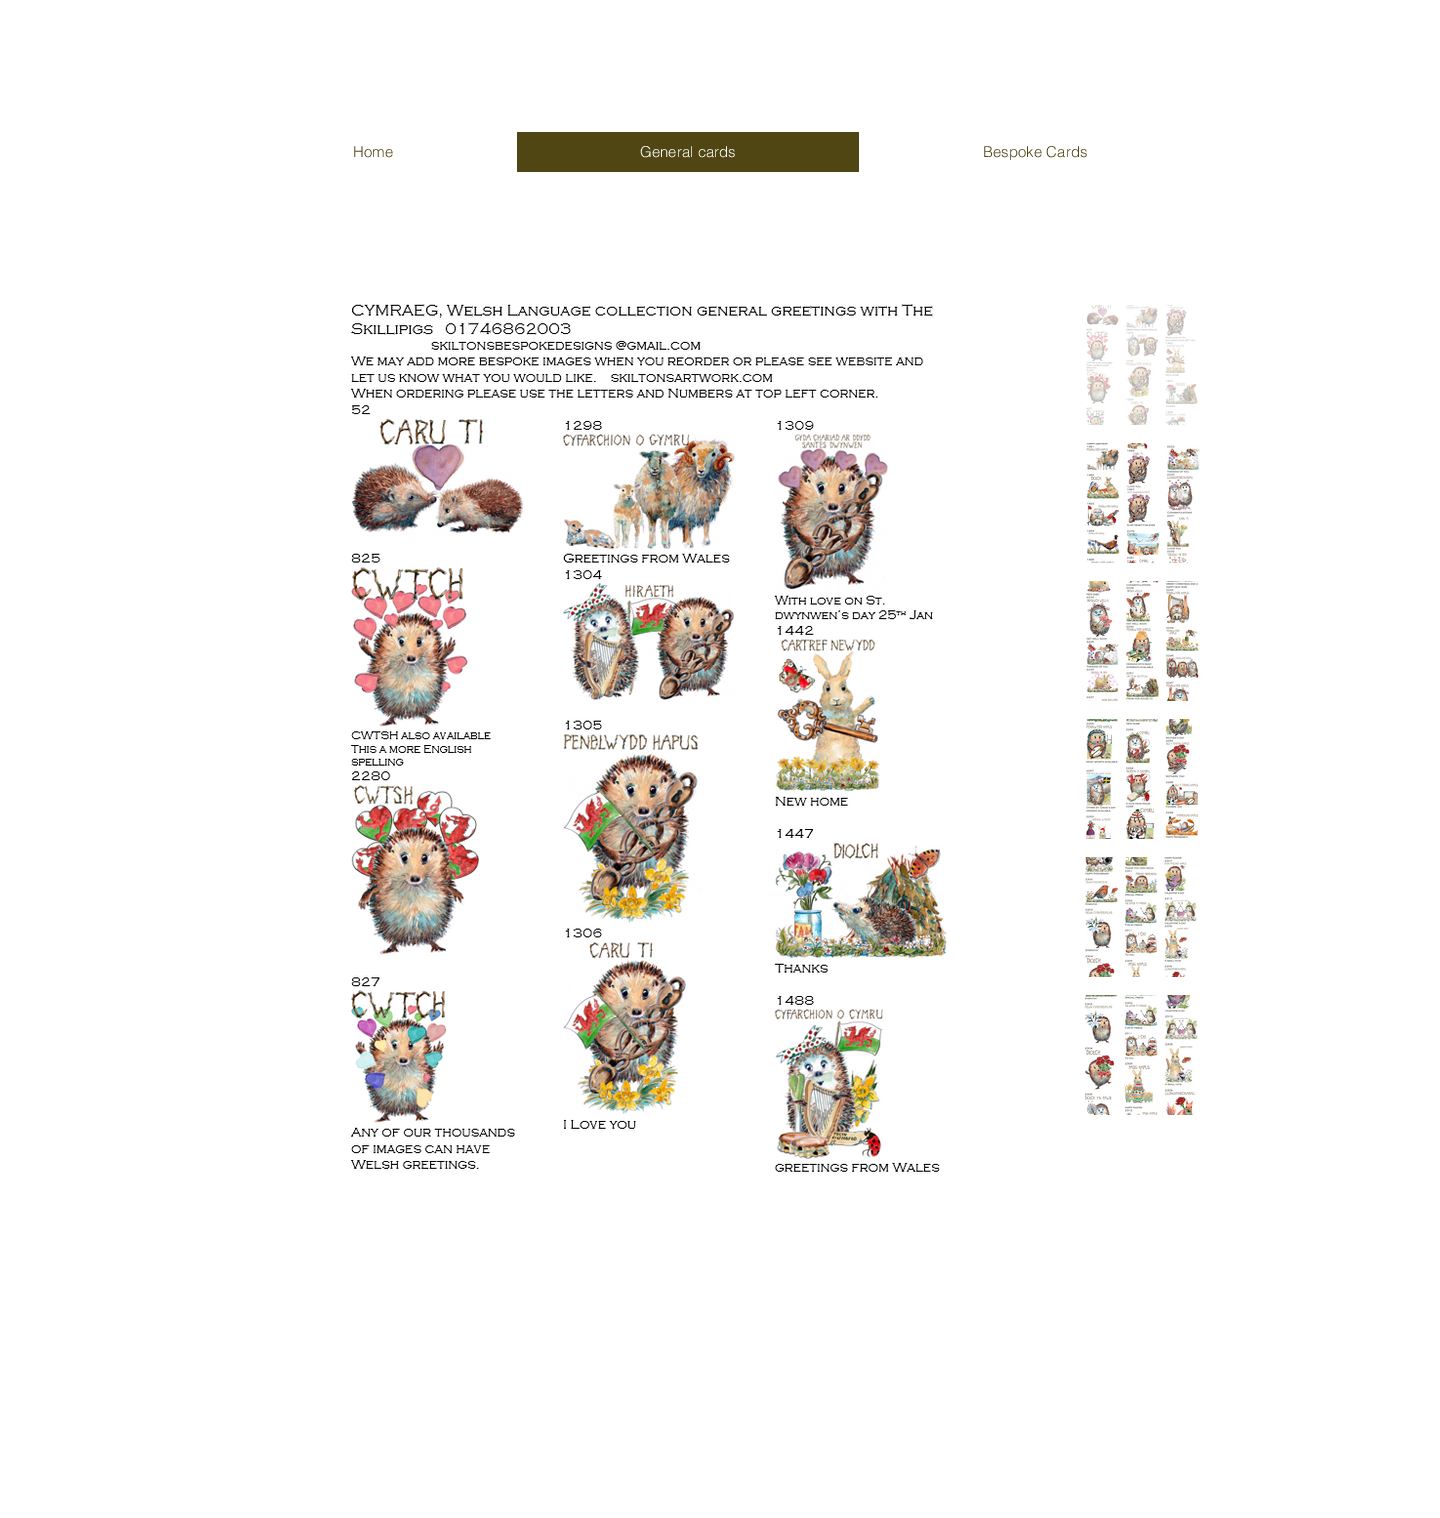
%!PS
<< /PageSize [1440 1518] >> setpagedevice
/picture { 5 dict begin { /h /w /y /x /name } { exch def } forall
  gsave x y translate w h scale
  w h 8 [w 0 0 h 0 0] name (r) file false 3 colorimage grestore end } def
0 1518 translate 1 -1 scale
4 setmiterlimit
1 setgray
0 0 1440 1518 rectfill
/helvetica-Light [15 0 0 -15 0 0] selectfont
0.31 0.275 0.078 setrgbcolor
353 157 moveto (Home) show
517 132 342 40 rectfill
1 setgray
640 157 moveto (General cards) show
0.31 0.275 0.078 setrgbcolor
983 157 moveto (Bespoke Cards) show
(img1.rgb) 351 303 596 871 picture
(img2.rgb) 1086 305 112 120 picture
(img3.rgb) 1086 443 114 120 picture
(img4.rgb) 1086 581 113 120 picture
(img5.rgb) 1086 719 113 120 picture
(img6.rgb) 1085 857 112 120 picture
(img7.rgb) 1084 995 114 120 picture
showpage
